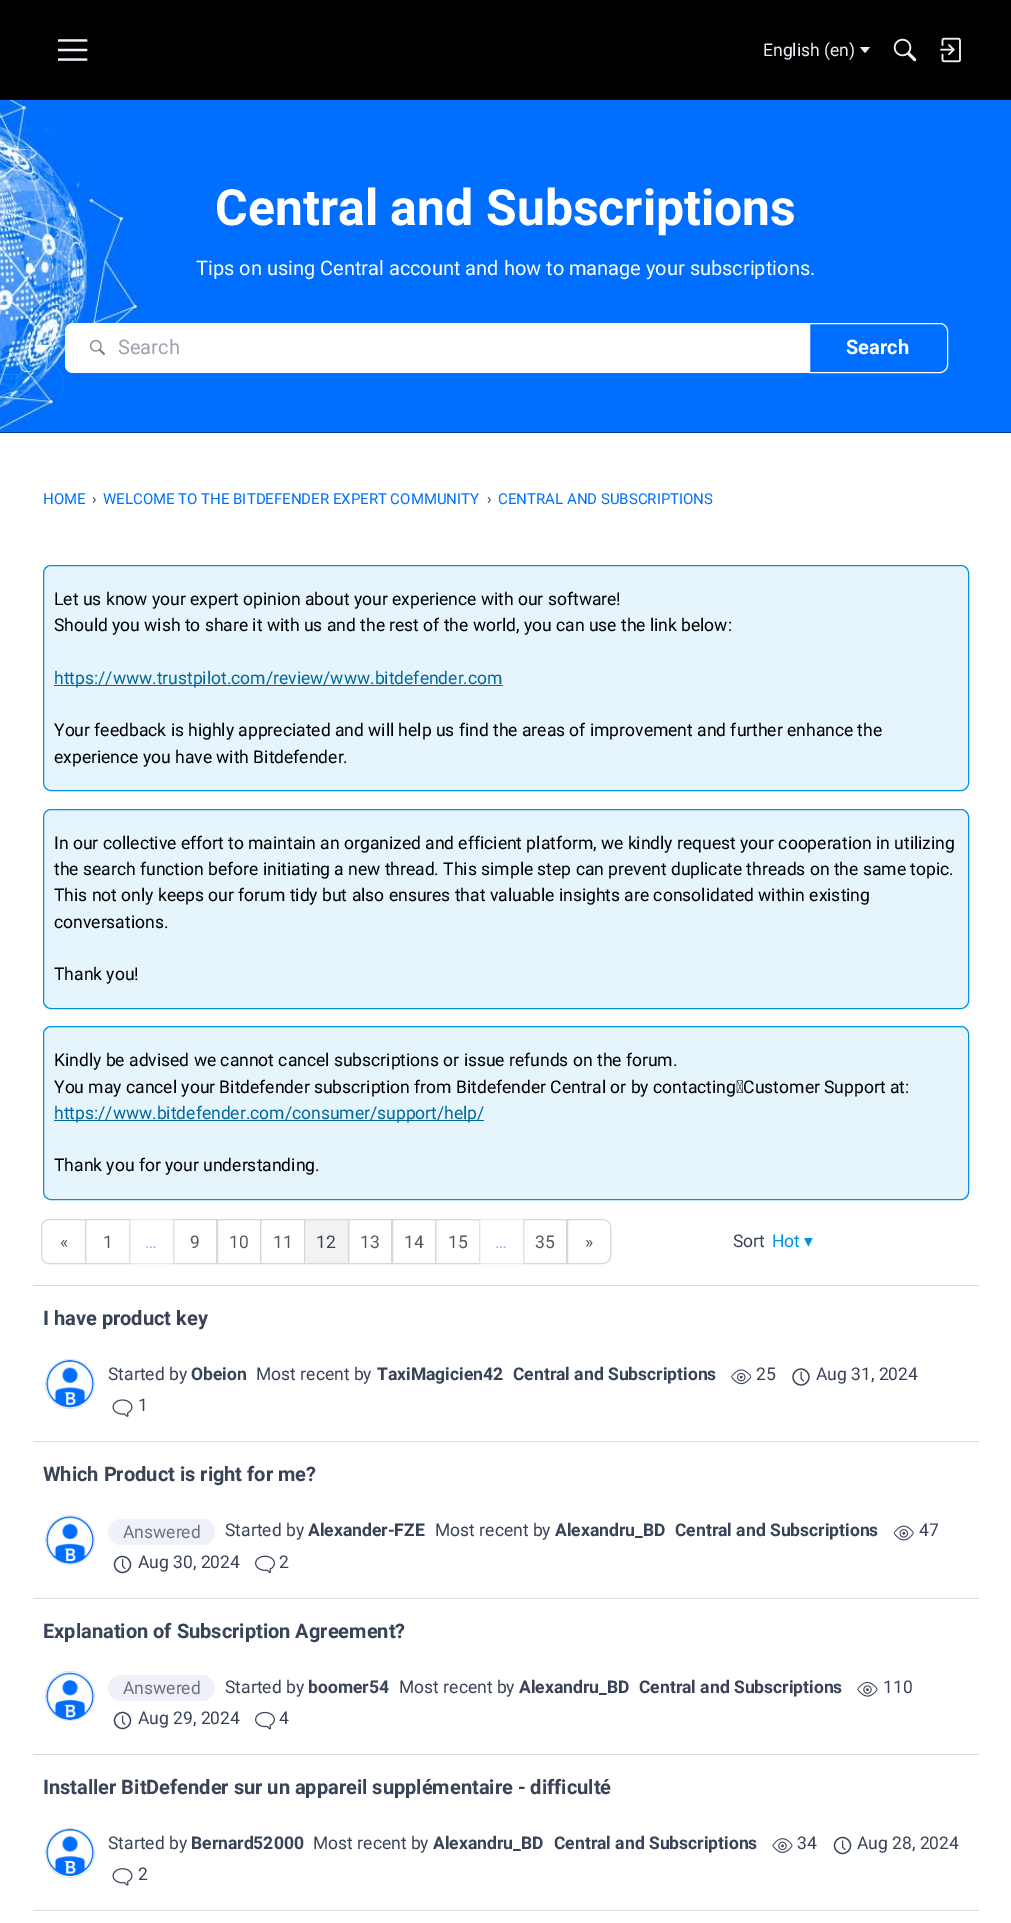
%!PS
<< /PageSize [1011 1923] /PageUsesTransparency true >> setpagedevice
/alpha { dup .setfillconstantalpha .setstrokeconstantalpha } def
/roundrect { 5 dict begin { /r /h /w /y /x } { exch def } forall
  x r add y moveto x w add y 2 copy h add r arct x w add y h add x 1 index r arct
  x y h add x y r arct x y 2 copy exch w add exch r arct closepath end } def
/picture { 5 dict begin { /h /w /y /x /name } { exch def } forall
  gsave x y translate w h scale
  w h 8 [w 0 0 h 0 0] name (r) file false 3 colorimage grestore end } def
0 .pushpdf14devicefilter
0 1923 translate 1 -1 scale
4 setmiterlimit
1 setgray
0 0 1011 1923 rectfill
0 setgray
0 0 1011 100 rectfill
(img1.rgb) 58 39 30 22 picture
/Roboto-Regular [17.5 0 0 -17.5 0 0] selectfont
0.937 0.945 0.976 setrgbcolor
763 56 moveto (English \(en\)) show
newpath 860 47 moveto 870 47 lineto 865 53 lineto closepath fill
(img2.rgb) 893 38 24 24 picture
(img3.rgb) 940 37 21 26 picture
0.016 0.043 0.09 setrgbcolor
0 432 1011 1 rectfill
(img4.rgb) 0 100 1011 333 picture
/Roboto-Bold [50 0 0 -50 0 0] selectfont
1 setgray
215 225 moveto (Central and Subscriptions) show
/Roboto-Regular [20 0 0 -20 0 0] selectfont
196 275 moveto (Tips on using Central account and how to manage your subscriptions.) show
newpath 809.5 323.5 moveto 940 323.5 lineto 944 323.5 947.5 327 947.5 331 curveto 947.5 365 lineto 947.5 369 944 372.5 940 372.5 curveto 809.5 372.5 lineto closepath stroke
newpath 73 323 moveto 810 323 lineto 810 373 lineto 73 373 lineto 68.5 373 65 369.5 65 365 curveto 65 331 lineto 65 326.5 68.5 323 73 323 curveto closepath fill
(img5.rgb) 90 340 15 15 picture
0.612 0.631 0.671 setrgbcolor
118 354 moveto (Search) show
/Roboto-Bold [20 0 0 -20 0 0] selectfont
1 setgray
846 354 moveto (Search) show
/Roboto-Regular [15 0 0 -15 0 0] selectfont
0 0.431 1 setrgbcolor
43 504 moveto (HOME) show
0.22 0.263 0.341 setrgbcolor
92 504 moveto (›) show
0 0.431 1 setrgbcolor
103 504 moveto (WELCOME TO THE BITDEFENDER EXPERT COMMUNITY) show
0.22 0.263 0.341 setrgbcolor
487 504 moveto (›) show
0 0.431 1 setrgbcolor
498 504 moveto (CENTRAL AND SUBSCRIPTIONS) show
0.902 0.957 0.984 setrgbcolor
43.5 565.5 925 225 7.5 roundrect gsave fill grestore
0.008 0.569 0.859 setrgbcolor
stroke
/Roboto-Regular [17.5 0 0 -17.5 0 0] selectfont
0 setgray
54 605 moveto (Let us know your expert opinion about your experience with our software!) show
54 631 moveto (Should you wish to share it with us and the rest of the world, you can use the link below:) show
0.004 0.412 0.62 setrgbcolor
54 685 449 1 rectfill
54 684 moveto (https://www.trustpilot.com/review/www.bitdefender.com) show
0 setgray
54 736 moveto (Your feedback is highly appreciated and will help us find the areas of improvement and further enhance the) show
54 763 moveto (experience you have with Bitdefender.) show
0.902 0.957 0.984 setrgbcolor
43.5 809.5 925 199 7.5 roundrect gsave fill grestore
0.008 0.569 0.859 setrgbcolor
stroke
0 setgray
54 849 moveto (In our collective effort to maintain an organized and efficient platform, we kindly request your cooperation in utilizing) show
54 875 moveto (the search function before initiating a new thread. This simple step can prevent duplicate threads on the same topic.) show
54 901 moveto (This not only keeps our forum tidy but also ensures that valuable insights are consolidated within existing) show
54 928 moveto (conversations.) show
54 980 moveto (Thank you!) show
0.902 0.957 0.984 setrgbcolor
43.5 1026.5 925 173 7.5 roundrect gsave fill grestore
0.008 0.569 0.859 setrgbcolor
stroke
0 setgray
54 1066 moveto (Kindly be advised we cannot cancel subscriptions or issue refunds on the forum.) show
54 1093 moveto (You may cancel your Bitdefender subscription from Bitdefender Central or by contacting Customer Support at:) show
0.004 0.412 0.62 setrgbcolor
54 1120 430 1 rectfill
54 1119 moveto (https://www.bitdefender.com/consumer/support/help/) show
0 setgray
54 1171 moveto (Thank you for your understanding.) show
0.839 0.843 0.851 setrgbcolor
newpath 49 1219.5 moveto 85.5 1219.5 lineto 85.5 1263.5 lineto 49 1263.5 lineto 45 1263.5 41.5 1260 41.5 1256 curveto 41.5 1227 lineto 41.5 1223 45 1219.5 49 1219.5 curveto closepath stroke
0.333 0.353 0.384 setrgbcolor
60 1248 moveto («) show
0.839 0.843 0.851 setrgbcolor
85.5 1219.5 44 44 rectstroke
0.333 0.353 0.384 setrgbcolor
103 1248 moveto (1) show
0.839 0.843 0.851 setrgbcolor
173.5 1219.5 44 44 rectstroke
0.333 0.353 0.384 setrgbcolor
190 1248 moveto (9) show
0.839 0.843 0.851 setrgbcolor
216.5 1219.5 44 44 rectstroke
0.333 0.353 0.384 setrgbcolor
229 1248 moveto (10) show
0.839 0.843 0.851 setrgbcolor
260.5 1219.5 44 44 rectstroke
0.333 0.353 0.384 setrgbcolor
273 1248 moveto (11) show
0.949 setgray
newpath 304.5 1219.5 moveto 348.5 1219.5 lineto 348.5 1263.5 lineto 304.5 1263.5 lineto closepath gsave fill grestore
0.839 0.843 0.851 setrgbcolor
stroke
0.22 0.263 0.341 setrgbcolor
316 1248 moveto (12) show
0.839 0.843 0.851 setrgbcolor
348.5 1219.5 44 44 rectstroke
0.333 0.353 0.384 setrgbcolor
360 1248 moveto (13) show
0.839 0.843 0.851 setrgbcolor
391.5 1219.5 44 44 rectstroke
0.333 0.353 0.384 setrgbcolor
404 1248 moveto (14) show
0.839 0.843 0.851 setrgbcolor
435.5 1219.5 44 44 rectstroke
0.333 0.353 0.384 setrgbcolor
448 1248 moveto (15) show
0.839 0.843 0.851 setrgbcolor
523.5 1219.5 44 44 rectstroke
0.333 0.353 0.384 setrgbcolor
535 1248 moveto (35) show
0.839 0.843 0.851 setrgbcolor
newpath 566.5 1219.5 moveto 603 1219.5 lineto 607 1219.5 610.5 1223 610.5 1227 curveto 610.5 1256 lineto 610.5 1260 607 1263.5 603 1263.5 curveto 566.5 1263.5 lineto closepath stroke
0.333 0.353 0.384 setrgbcolor
585 1248 moveto (») show
0.5 alpha
1 setgray
129 1219 45 45 rectfill
0.839 0.843 0.851 setrgbcolor
129.5 1219.5 44 44 rectstroke
1 alpha
0.502 0.718 1 setrgbcolor
145 1248 moveto (…) show
0.5 alpha
1 setgray
479 1219 45 45 rectfill
0.839 0.843 0.851 setrgbcolor
479.5 1219.5 44 44 rectstroke
1 alpha
0.502 0.718 1 setrgbcolor
495 1248 moveto (…) show
0.22 0.263 0.341 setrgbcolor
733 1247 moveto (Sort) show
0.008 0.569 0.859 setrgbcolor
772 1247 moveto (Hot) show
/DejaVuSans-Regular [17.5 0 0 -17.5 0 0] selectfont
804 1247 moveto (▾) show
0.843 0.851 0.867 setrgbcolor
33 1285 946 1 rectfill
/Roboto-Bold [20 0 0 -20 0 0] selectfont
0.22 0.263 0.341 setrgbcolor
43 1325 moveto (I have product key) show
0.882 0.89 0.902 setrgbcolor
newpath 70 1384 24.5 0 360 arc closepath stroke
(img6.rgb) 46 1360 48 48 picture
/Roboto-Regular [17.5 0 0 -17.5 0 0] selectfont
0.22 0.263 0.341 setrgbcolor
108 1380 moveto (Started by) show
/Roboto-Bold [17.5 0 0 -17.5 0 0] selectfont
191 1380 moveto (Obeion) show
/Roboto-Regular [17.5 0 0 -17.5 0 0] selectfont
256 1380 moveto (Most recent by) show
/Roboto-Bold [17.5 0 0 -17.5 0 0] selectfont
377 1380 moveto (TaxiMagicien42) show
513 1380 moveto (Central and Subscriptions) show
(img7.rgb) 731 1369 21 16 picture
/Roboto-Regular [17.5 0 0 -17.5 0 0] selectfont
756 1380 moveto (25) show
1.2 setlinewidth
newpath 801 1377 8 0 360 arc closepath stroke
816 1380 moveto (Aug 31, 2024) show
1 setlinewidth
1 setlinecap
1 setlinejoin
newpath 801 1372 moveto 801 1378.5 lineto 803.5 1381 lineto stroke
(img8.rgb) 112 1399 21 18 picture
138 1411 moveto (1) show
0.843 0.851 0.867 setrgbcolor
33 1441 946 1 rectfill
/Roboto-Bold [20 0 0 -20 0 0] selectfont
0.22 0.263 0.341 setrgbcolor
43 1481 moveto (Which Product is right for me?) show
0.882 0.89 0.902 setrgbcolor
0 setlinecap
0 setlinejoin
newpath 70 1540 24.5 0 360 arc closepath stroke
(img9.rgb) 46 1516 48 48 picture
0.937 0.945 0.976 setrgbcolor
108 1519 107 26 13 roundrect fill
/Roboto-Regular [17.5 0 0 -17.5 0 0] selectfont
0.416 0.447 0.506 setrgbcolor
123 1538 moveto (Answered) show
0.22 0.263 0.341 setrgbcolor
225 1536 moveto (Started by) show
/Roboto-Bold [17.5 0 0 -17.5 0 0] selectfont
308 1536 moveto (Alexander-FZE) show
/Roboto-Regular [17.5 0 0 -17.5 0 0] selectfont
435 1536 moveto (Most recent by) show
/Roboto-Bold [17.5 0 0 -17.5 0 0] selectfont
555 1536 moveto (Alexandru_BD) show
675 1536 moveto (Central and Subscriptions) show
(img10.rgb) 893 1525 21 16 picture
/Roboto-Regular [17.5 0 0 -17.5 0 0] selectfont
919 1536 moveto (47) show
1.2 setlinewidth
newpath 122.5 1564.5 8 0 360 arc closepath stroke
138 1568 moveto (Aug 30, 2024) show
1 setlinewidth
1 setlinecap
1 setlinejoin
newpath 122.5 1559.5 moveto 122.5 1566 lineto 125 1568.5 lineto stroke
(img11.rgb) 255 1555 20 19 picture
279 1568 moveto (2) show
0.843 0.851 0.867 setrgbcolor
33 1598 946 1 rectfill
/Roboto-Bold [20 0 0 -20 0 0] selectfont
0.22 0.263 0.341 setrgbcolor
43 1638 moveto (Explanation of Subscription Agreement?) show
0.882 0.89 0.902 setrgbcolor
0 setlinecap
0 setlinejoin
newpath 70 1696 24.5 0 360 arc closepath stroke
(img12.rgb) 46 1672 48 48 picture
0.937 0.945 0.976 setrgbcolor
108 1675 107 26 13 roundrect fill
/Roboto-Regular [17.5 0 0 -17.5 0 0] selectfont
0.416 0.447 0.506 setrgbcolor
123 1694 moveto (Answered) show
0.22 0.263 0.341 setrgbcolor
225 1693 moveto (Started by) show
/Roboto-Bold [17.5 0 0 -17.5 0 0] selectfont
308 1693 moveto (boomer54) show
/Roboto-Regular [17.5 0 0 -17.5 0 0] selectfont
399 1693 moveto (Most recent by) show
/Roboto-Bold [17.5 0 0 -17.5 0 0] selectfont
519 1693 moveto (Alexandru_BD) show
639 1693 moveto (Central and Subscriptions) show
(img13.rgb) 857 1681 21 16 picture
/Roboto-Regular [17.5 0 0 -17.5 0 0] selectfont
883 1693 moveto (110) show
1.2 setlinewidth
newpath 122.5 1720.5 8 0 360 arc closepath stroke
138 1724 moveto (Aug 29, 2024) show
1 setlinewidth
1 setlinecap
1 setlinejoin
newpath 122.5 1716 moveto 122.5 1722 lineto 125 1724.5 lineto stroke
(img14.rgb) 255 1711 20 19 picture
279 1724 moveto (4) show
0.843 0.851 0.867 setrgbcolor
33 1754 946 1 rectfill
/Roboto-Bold [20 0 0 -20 0 0] selectfont
0.22 0.263 0.341 setrgbcolor
43 1794 moveto (Installer BitDefender sur un appareil supplémentaire - difficulté) show
0.882 0.89 0.902 setrgbcolor
0 setlinecap
0 setlinejoin
newpath 70 1853 24.5 0 360 arc closepath stroke
(img15.rgb) 46 1828 48 49 picture
/Roboto-Regular [17.5 0 0 -17.5 0 0] selectfont
0.22 0.263 0.341 setrgbcolor
108 1849 moveto (Started by) show
/Roboto-Bold [17.5 0 0 -17.5 0 0] selectfont
191 1849 moveto (Bernard52000) show
/Roboto-Regular [17.5 0 0 -17.5 0 0] selectfont
313 1849 moveto (Most recent by) show
/Roboto-Bold [17.5 0 0 -17.5 0 0] selectfont
433 1849 moveto (Alexandru_BD) show
554 1849 moveto (Central and Subscriptions) show
(img16.rgb) 772 1838 21 15 picture
/Roboto-Regular [17.5 0 0 -17.5 0 0] selectfont
797 1849 moveto (34) show
1.2 setlinewidth
newpath 842.5 1845.5 8 0 360 arc closepath stroke
857 1849 moveto (Aug 28, 2024) show
1 setlinewidth
1 setlinecap
1 setlinejoin
newpath 842.5 1841 moveto 842.5 1847 lineto 845 1849.5 lineto stroke
(img17.rgb) 112 1868 21 18 picture
138 1880 moveto (2) show
0.843 0.851 0.867 setrgbcolor
33 1910 946 1 rectfill
.poppdf14devicefilter showpage
